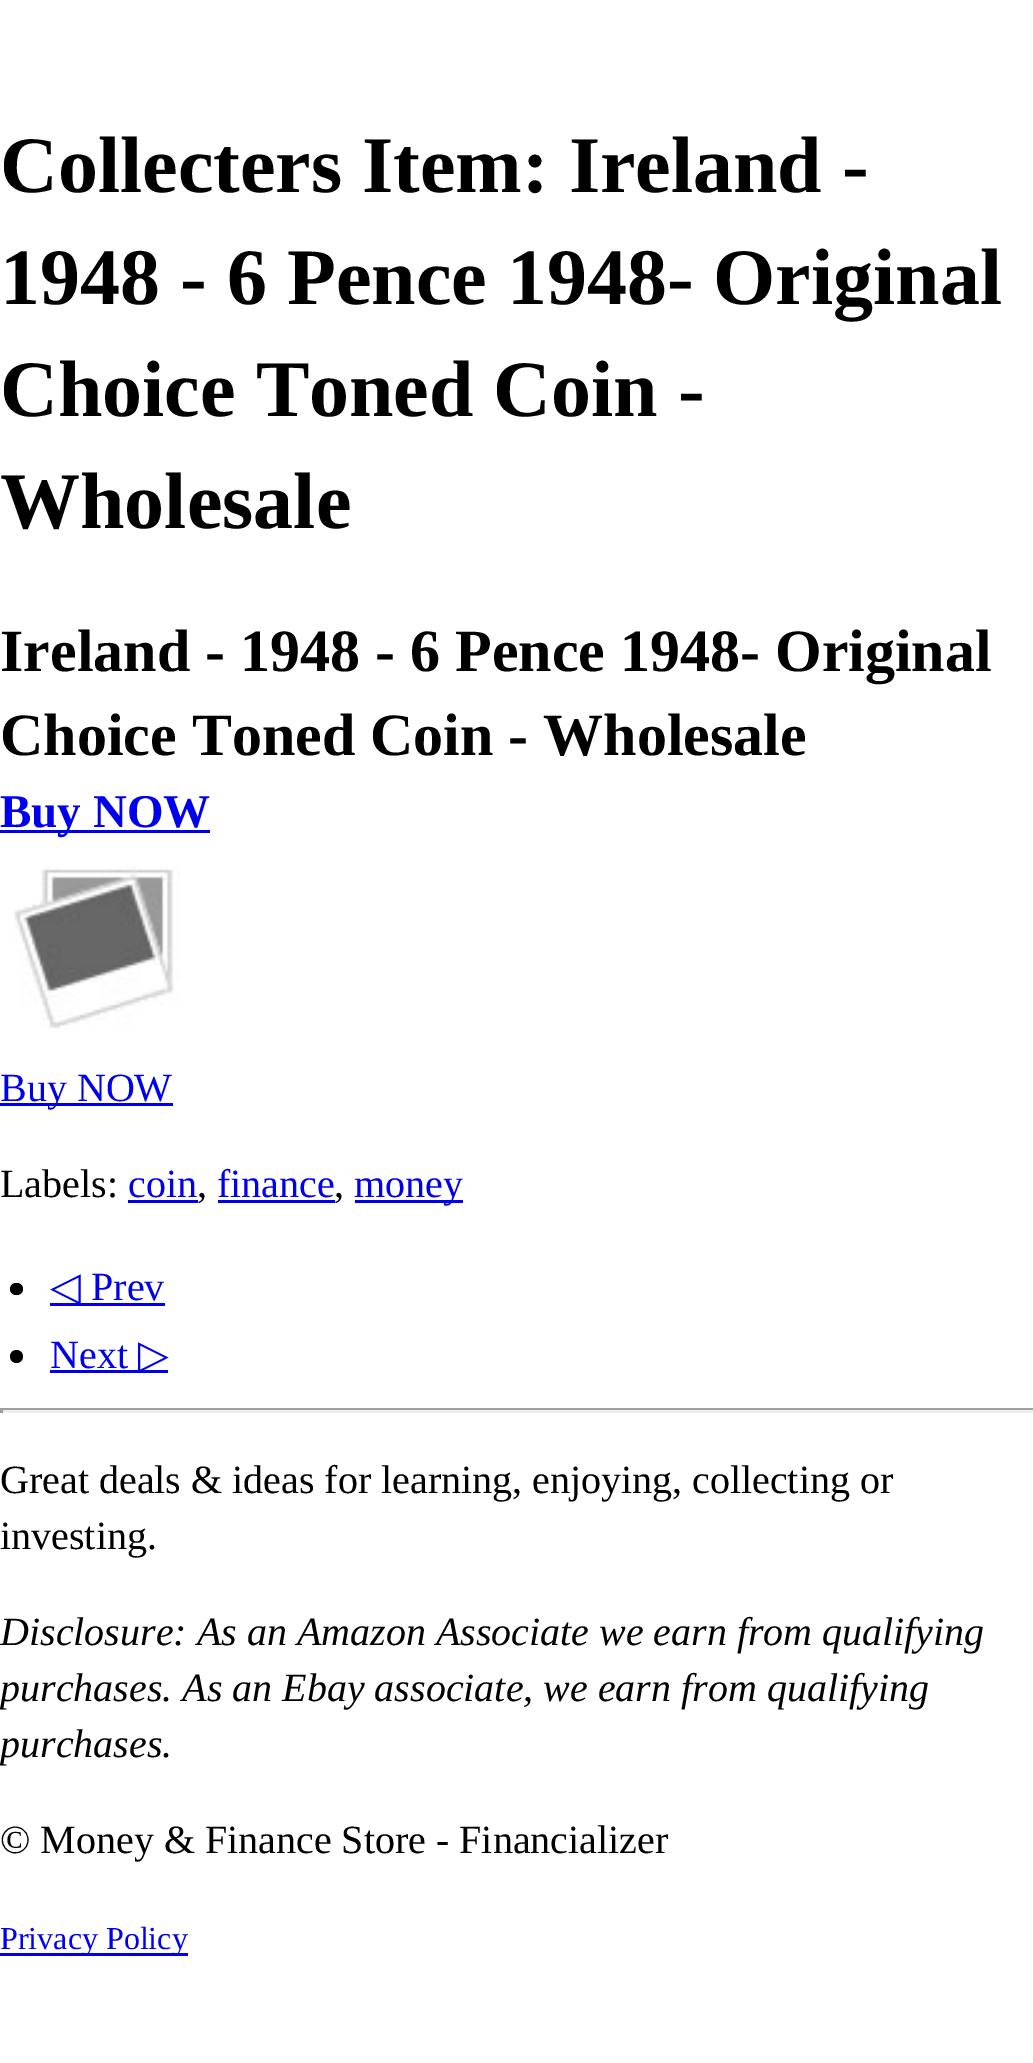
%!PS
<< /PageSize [1033 2063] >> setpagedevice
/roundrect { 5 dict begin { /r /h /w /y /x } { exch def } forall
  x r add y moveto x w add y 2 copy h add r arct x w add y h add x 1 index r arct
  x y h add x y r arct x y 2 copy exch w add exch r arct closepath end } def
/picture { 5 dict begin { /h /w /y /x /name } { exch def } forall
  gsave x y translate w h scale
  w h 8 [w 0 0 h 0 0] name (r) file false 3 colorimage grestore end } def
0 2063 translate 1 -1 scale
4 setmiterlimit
1 setgray
0 0 1033 2063 rectfill
/LiberationSerif-Bold [80 0 0 -80 0 0] selectfont
0 setgray
0 192 moveto (Collecters Item: Ireland -) show
0 304 moveto (1948 - 6 Pence 1948- Original) show
0 416 moveto (Choice Toned Coin -) show
0 528 moveto (Wholesale) show
/LiberationSerif-Bold [60 0 0 -60 0 0] selectfont
0 671 moveto (Ireland - 1948 - 6 Pence 1948- Original) show
0 755 moveto (Choice Toned Coin - Wholesale) show
0 0 0.933 setrgbcolor
0 830 210 3 rectfill
/LiberationSerif-Bold [47 0 0 -47 0 0] selectfont
0 827 moveto (Buy NOW) show
(img1.rgb) 14 866 166 163 picture
0 1103 173 3 rectfill
/LiberationSerif-Regular [40 0 0 -40 0 0] selectfont
0 1101 moveto (Buy NOW) show
0 setgray
0 1197 moveto (Labels:) show
0 0 0.933 setrgbcolor
128 1197 moveto (coin) show
128 1200 70 3 rectfill
0 setgray
197 1197 moveto (,) show
0 0 0.933 setrgbcolor
217 1197 moveto (finance) show
218 1200 117 3 rectfill
0 setgray
334 1197 moveto (,) show
0 0 0.933 setrgbcolor
355 1200 108 3 rectfill
354 1197 moveto (money) show
0 setgray
10 1283 13 12 6 roundrect fill
0 0 0.933 setrgbcolor
50 1303 115 3 rectfill
/DejaVuSans-Regular [40 0 0 -40 0 0] selectfont
50 1300 moveto (◁) show
/LiberationSerif-Regular [40 0 0 -40 0 0] selectfont
91 1300 moveto (Prev) show
0 setgray
newpath 16.5 1356.5 6.5 0 360 arc closepath fill
0 0 0.933 setrgbcolor
50 1368 moveto (Next) show
50 1370 118 3 rectfill
/DejaVuSans-Regular [40 0 0 -40 0 0] selectfont
138 1368 moveto (▷) show
0.624 setgray
0 1408 1033 2 rectfill
0.933 setgray
0 1410 1033 3 rectfill
0.624 setgray
0 1408 3 5 rectfill
/LiberationSerif-Regular [40 0 0 -40 0 0] selectfont
0 setgray
0 1493 moveto (Great deals & ideas for learning, enjoying, collecting or) show
0 1549 moveto (investing.) show
/LiberationSerif-Italic [40 0 0 -40 0 0] selectfont
0 1645 moveto (Disclosure: As an Amazon Associate we earn from qualifying) show
0 1701 moveto (purchases. As an Ebay associate, we earn from qualifying) show
0 1757 moveto (purchases.) show
/LiberationSerif-Regular [40 0 0 -40 0 0] selectfont
0 1853 moveto (© Money & Finance Store - Financializer) show
0 0 0.933 setrgbcolor
0 1953 188 3 rectfill
/LiberationSerif-Regular [32 0 0 -32 0 0] selectfont
0 1949 moveto (Privacy Policy) show
showpage
